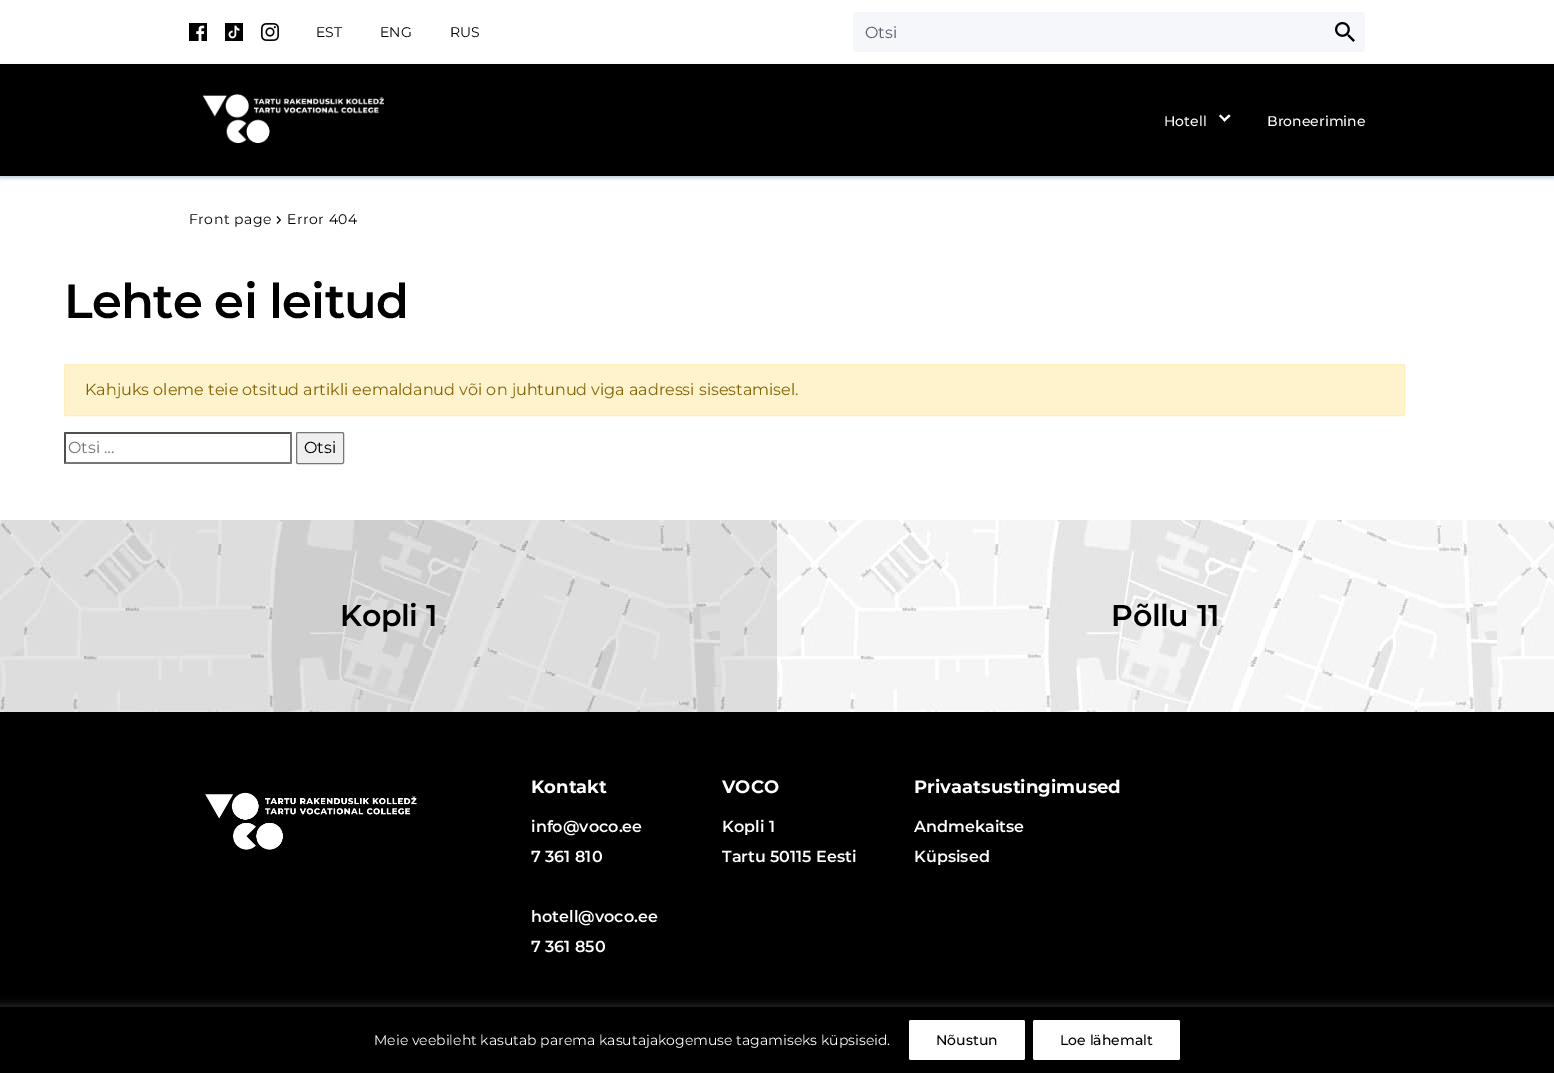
%!PS
<< /PageSize [1554 1073] /PageUsesTransparency true >> setpagedevice
/alpha { dup .setfillconstantalpha .setstrokeconstantalpha } def
/roundrect { 5 dict begin { /r /h /w /y /x } { exch def } forall
  x r add y moveto x w add y 2 copy h add r arct x w add y h add x 1 index r arct
  x y h add x y r arct x y 2 copy exch w add exch r arct closepath end } def
/shadow { 12 dict begin { /a /b /q /h /w /y /x } { exch def } forall gsave /was 0 def
  9 -2 -9 { dup b mul 4 div /e exch def 1 sub .425 mul 2.718 exch exp 1 add a .99 .min exch div /now exch def
    1 1 now sub 1 was sub div sub alpha /was now def
    w h .min e 2 mul add 0 gt { x e sub y e sub w e 2 mul add h e 2 mul add
      q e add b .6 mul add w h .min 2 div e add .min 0 .max roundrect fill } if } for grestore end } def
/picture { 5 dict begin { /h /w /y /x /name } { exch def } forall
  gsave x y translate w h scale
  w h 8 [w 0 0 h 0 0] name (r) file false 3 colorimage grestore end } def
0 .pushpdf14devicefilter
0 1073 translate 1 -1 scale
4 setmiterlimit
1 setgray
0 0 1554 1073 rectfill
(img1.rgb) 189 23 18 18 picture
(img2.rgb) 225 23 18 18 picture
(img3.rgb) 261 23 18 18 picture
/Montserrat-Regular [14 0 0 -14 0 0] selectfont
0 setgray
316 37 moveto (EST) show
380 37 moveto (ENG) show
450 37 moveto (RUS) show
0.961 0.969 0.98 setrgbcolor
853 12 512 40 4 roundrect fill
/Montserrat-Regular [16 0 0 -16 0 0] selectfont
0.345 0.376 0.431 setrgbcolor
865 38 moveto (Otsi) show
(img4.rgb) 1335 22 20 20 picture
0.067 0.263 0.569 setrgbcolor
0 66 1554 112 0 2 0.3 shadow
0 setgray
0 64 1554 112 rectfill
(img5.rgb) 202 94 183 50 picture
/Montserrat-Medium [14 0 0 -14 0 0] selectfont
1 setgray
1164 126 moveto (Hotell) show
newpath 1230.5 116 moveto 1224.5 121.5 lineto 1223 120 lineto 1229 114.5 lineto closepath fill
newpath 1226 120 moveto 1224.5 121.5 lineto 1219 116 lineto 1220.5 114.5 lineto closepath fill
1267 126 moveto (Broneerimine) show
/Montserrat-Regular [14 0 0 -14 0 0] selectfont
0 setgray
189 224 moveto 0.5 0 (Front page) ashow
(img6.rgb) 276 216 5 8 picture
287 224 moveto 0.5 0 (Error 404) ashow
/Montserrat-SemiBold [48 0 0 -48 0 0] selectfont
64 318 moveto -0.75 0 (Lehte ei leitud) ashow
1 0.953 0.804 setrgbcolor
64.5 364.5 1340 51 1.5 roundrect gsave fill grestore
1 0.933 0.729 setrgbcolor
stroke
/Montserrat-Regular [16 0 0 -16 0 0] selectfont
0.522 0.392 0.016 setrgbcolor
85 395 moveto (Kahjuks oleme teie otsitud artikli eemaldanud või on juhtunud viga aadressi sisestamisel.) show
0.31 setgray
newpath 64 432 moveto 292 432 lineto 290 434 lineto 66 434 lineto closepath fill
0.463 setgray
newpath 292 432 moveto 292 464 lineto 290 462 lineto 290 434 lineto closepath fill
newpath 292 464 moveto 64 464 lineto 66 462 lineto 290 462 lineto closepath fill
0.31 setgray
newpath 64 464 moveto 64 432 lineto 66 434 lineto 66 462 lineto closepath fill
0.459 setgray
68 453 moveto (Otsi …) show
0.937 setgray
296.5 432.5 47 31 1.5 roundrect gsave fill grestore
0.463 setgray
stroke
0 setgray
304 453 moveto (Otsi) show
(img7.rgb) 0 520 777 192 picture
/Montserrat-SemiBold [30 0 0 -30 0 0] selectfont
340 626 moveto -0.25 0 (Kopli 1) ashow
(img8.rgb) 777 520 777 192 picture
1111 626 moveto -0.25 0 (Põllu 11) ashow
0 712 1554 295 rectfill
(img9.rgb) 205 792 212 58 picture
/Montserrat-Bold [18 0 0 -18 0 0] selectfont
1 setgray
531 793 moveto (Kontakt) show
/Montserrat-SemiBold [16 0 0 -16 0 0] selectfont
531 832 moveto (info@voco.ee) show
531 862 moveto (7 361 810) show
531 922 moveto (hotell@voco.ee) show
531 952 moveto (7 361 850) show
/Montserrat-Bold [18 0 0 -18 0 0] selectfont
722 793 moveto (VOCO) show
/Montserrat-SemiBold [16 0 0 -16 0 0] selectfont
722 832 moveto (Kopli 1) show
722 862 moveto (Tartu 50115 Eesti) show
/Montserrat-Bold [18 0 0 -18 0 0] selectfont
914 793 moveto (Privaatsustingimused) show
/Montserrat-SemiBold [16 0 0 -16 0 0] selectfont
914 832 moveto (Andmekaitse) show
914 862 moveto (Küpsised) show
0.675 0.671 0.671 setrgbcolor
0 1006 1554 66 0 5 0.3 shadow
0 setgray
0 1007 1554 66 rectfill
/Montserrat-Regular [14 0 0 -14 0 0] selectfont
1 setgray
374 1045 moveto (Meie veebileht kasutab parema kasutajakogemuse tagamiseks küpsiseid.) show
909 1020 116 40 2 roundrect fill
/Montserrat-Medium [14 0 0 -14 0 0] selectfont
0 setgray
936 1045 moveto (Nõustun) show
1 setgray
1033 1020 147 40 2 roundrect fill
0 setgray
1060 1045 moveto (Loe lähemalt) show
.poppdf14devicefilter showpage
